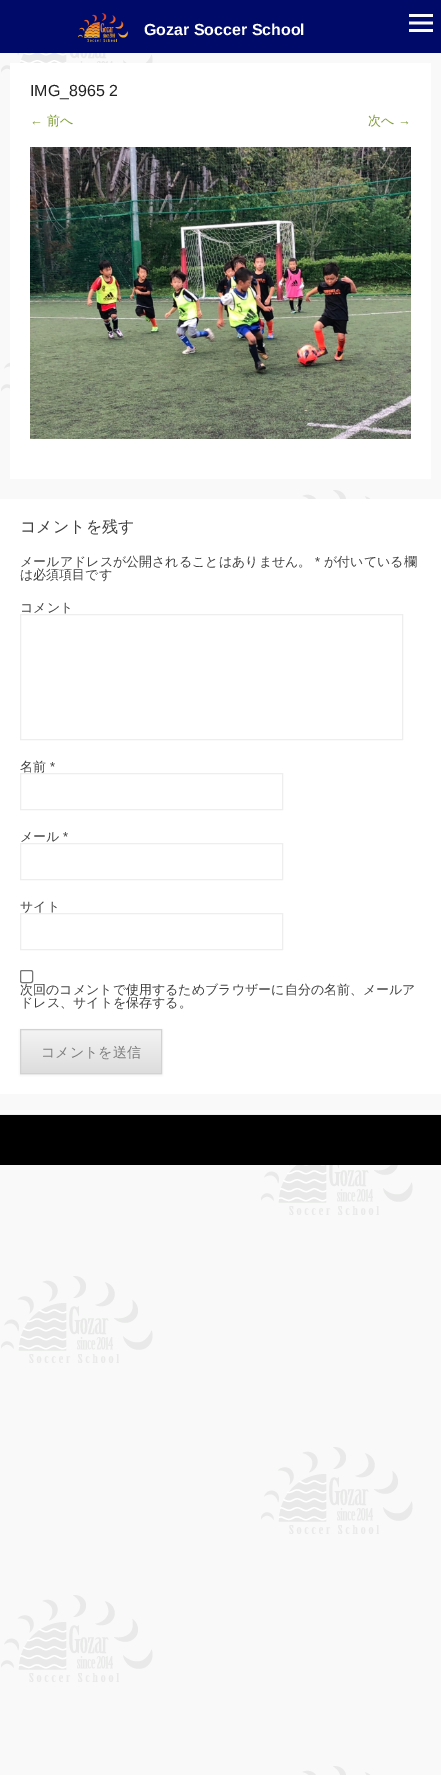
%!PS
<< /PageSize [441 1775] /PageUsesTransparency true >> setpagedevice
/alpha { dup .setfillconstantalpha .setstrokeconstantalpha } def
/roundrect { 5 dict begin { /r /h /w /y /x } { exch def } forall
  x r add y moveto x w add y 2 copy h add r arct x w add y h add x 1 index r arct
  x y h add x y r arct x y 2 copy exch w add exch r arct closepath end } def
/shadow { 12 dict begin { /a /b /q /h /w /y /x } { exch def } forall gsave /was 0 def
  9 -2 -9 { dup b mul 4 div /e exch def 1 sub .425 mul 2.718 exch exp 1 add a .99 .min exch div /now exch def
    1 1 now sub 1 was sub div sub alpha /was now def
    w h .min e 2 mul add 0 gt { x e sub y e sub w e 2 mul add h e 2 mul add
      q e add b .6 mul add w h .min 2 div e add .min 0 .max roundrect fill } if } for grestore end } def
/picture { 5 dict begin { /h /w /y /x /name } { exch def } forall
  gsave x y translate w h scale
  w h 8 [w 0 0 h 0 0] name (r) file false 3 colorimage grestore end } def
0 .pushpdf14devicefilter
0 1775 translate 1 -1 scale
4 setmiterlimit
0.976 setgray
0 0 441 1775 rectfill
(img1.rgb) 1 53 412 1722 picture
0 0.039 0.408 setrgbcolor
0 0 441 53 rectfill
(img2.rgb) 78 13 50 29 picture
/LiberationSans-Bold [16 0 0 -16 0 0] selectfont
1 setgray
144 35 moveto (Gozar Soccer School) show
(img3.rgb) 409 14 24 18 picture
10 63 421 416 rectfill
/LiberationSans-Regular [16 0 0 -16 0 0] selectfont
0.133 setgray
30 96 moveto (IMG_8965 2) show
/LiberationSans-Regular [13 0 0 -13 0 0] selectfont
0.486 0.608 0.188 setrgbcolor
30 125 moveto (←) show
/WenQuanYiZenHei-Medium [13 0 0 -13 0 0] selectfont
47 125 moveto (前へ) show
368 125 moveto (次へ) show
/LiberationSans-Regular [13 0 0 -13 0 0] selectfont
398 125 moveto (→) show
(img4.rgb) 30 147 381 292 picture
1 setgray
0 499 441 595 rectfill
/WenQuanYiZenHei-Medium [16 0 0 -16 0 0] selectfont
0.251 setgray
20 532 moveto (コメントを残す) show
/WenQuanYiZenHei-Medium [13 0 0 -13 0 0] selectfont
20 566 moveto (メールアドレスが公開されることはありません。) show
/LiberationSans-Regular [13 0 0 -13 0 0] selectfont
315 566 moveto (*) show
/WenQuanYiZenHei-Medium [13 0 0 -13 0 0] selectfont
324 566 moveto (が付いている欄) show
20 579 moveto (は必須項目です) show
20 612 moveto (コメント) show
0.933 setgray
20.5 614.5 382 125 rectstroke
0.251 setgray
20 771 moveto (名前) show
/LiberationSans-Regular [13 0 0 -13 0 0] selectfont
50 771 moveto (*) show
0.933 setgray
20.5 773.5 262 36 rectstroke
/WenQuanYiZenHei-Medium [13 0 0 -13 0 0] selectfont
0.251 setgray
20 841 moveto (メール) show
/LiberationSans-Regular [13 0 0 -13 0 0] selectfont
63 841 moveto (*) show
0.933 setgray
20.5 843.5 262 36 rectstroke
/WenQuanYiZenHei-Medium [13 0 0 -13 0 0] selectfont
0.251 setgray
20 911 moveto (サイト) show
0.933 setgray
20.5 913.5 262 36 rectstroke
0.463 setgray
20.5 970.5 12 12 1.5 roundrect stroke
0.251 setgray
20 994 moveto (次回のコメントで使用するためブラウザーに自分の名前、メールア) show
20 1007 moveto (ドレス、サイトを保存する。) show
20 1030 142 45 0 1 0.1 shadow
gsave newpath 21 1031 moveto 161 1031 lineto 161 1073 lineto 21 1073 lineto closepath clip newpath
<< /ShadingType 2 /ColorSpace /DeviceRGB /Coords [91 1030 91 1073] /Extend [true true] /Function << /FunctionType 2 /Domain [0 1] /C0 [0.957 0.957 0.957] /C1 [0.867 0.867 0.867] /N 1 >> >> shfill grestore
0.824 setgray
20.5 1029.5 141 44 rectstroke
/WenQuanYiZenHei-Medium [14 0 0 -14 0 0] selectfont
0.486 setgray
41 1057 moveto (コメントを送信) show
0.933 setgray
0 1114 441 1 rectfill
0 setgray
0 1115 441 50 rectfill
.poppdf14devicefilter showpage
